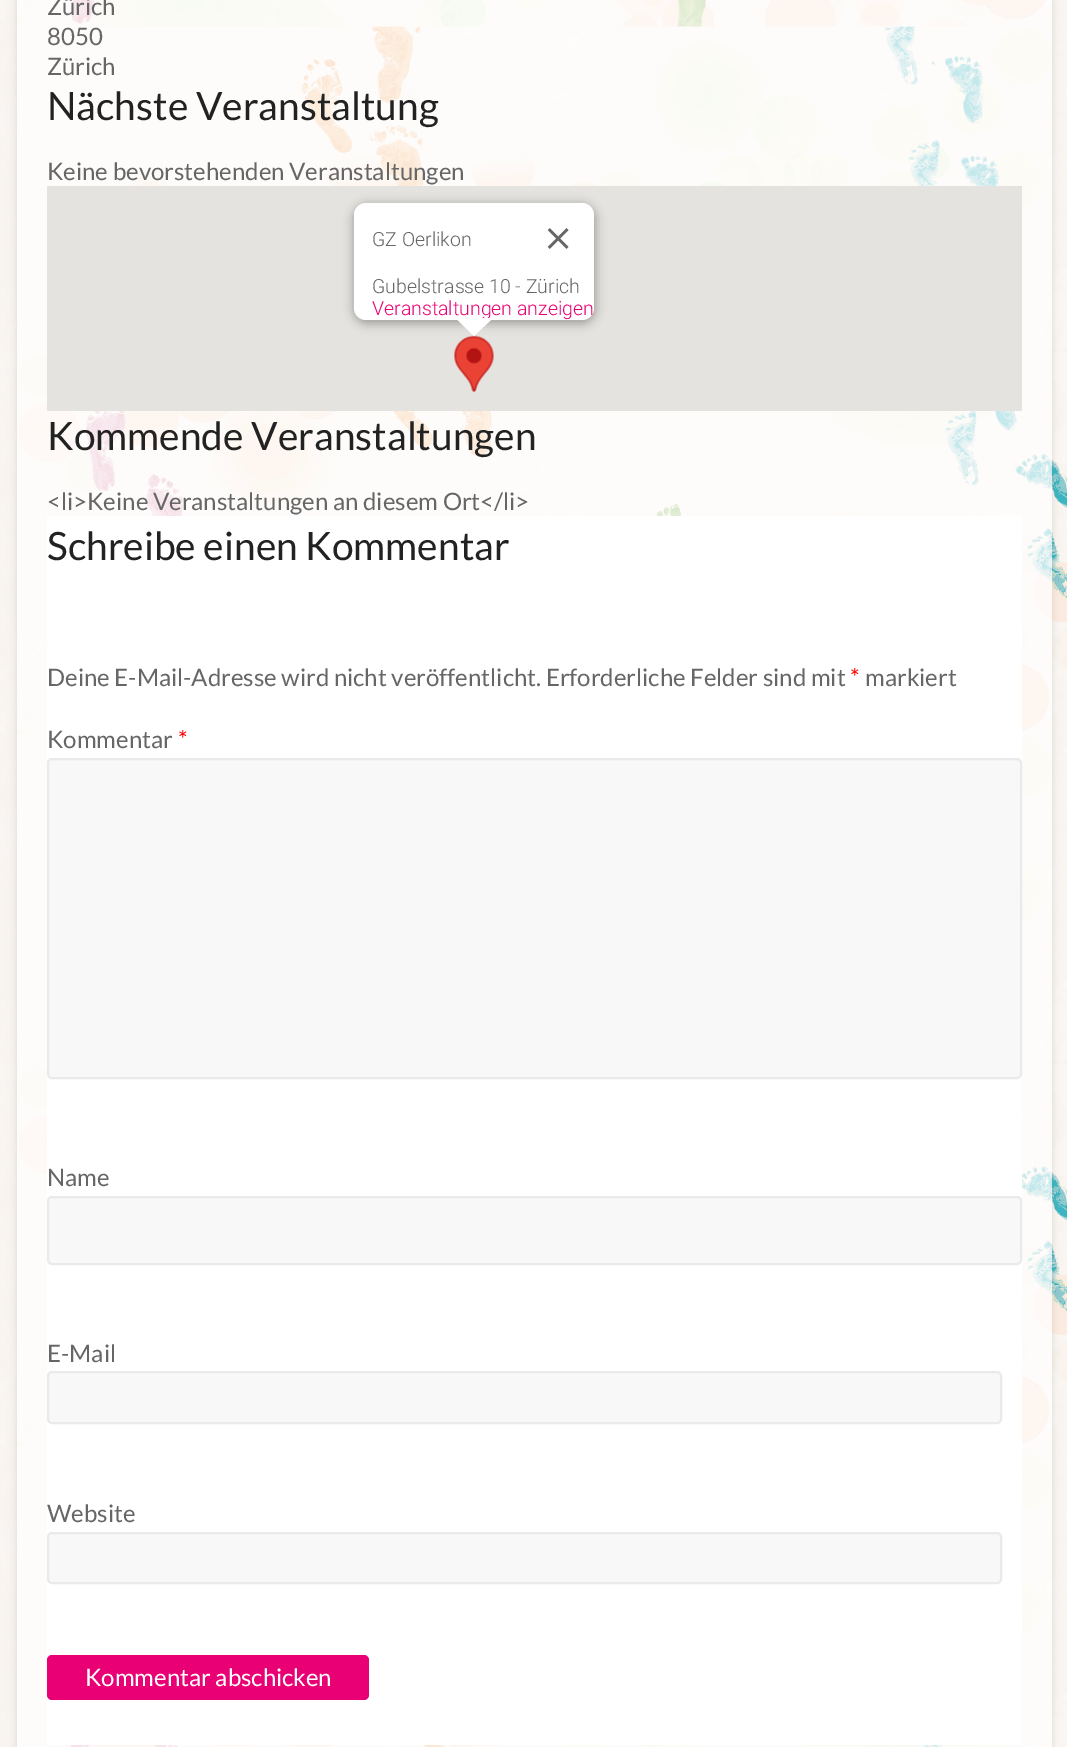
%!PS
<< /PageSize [1067 1747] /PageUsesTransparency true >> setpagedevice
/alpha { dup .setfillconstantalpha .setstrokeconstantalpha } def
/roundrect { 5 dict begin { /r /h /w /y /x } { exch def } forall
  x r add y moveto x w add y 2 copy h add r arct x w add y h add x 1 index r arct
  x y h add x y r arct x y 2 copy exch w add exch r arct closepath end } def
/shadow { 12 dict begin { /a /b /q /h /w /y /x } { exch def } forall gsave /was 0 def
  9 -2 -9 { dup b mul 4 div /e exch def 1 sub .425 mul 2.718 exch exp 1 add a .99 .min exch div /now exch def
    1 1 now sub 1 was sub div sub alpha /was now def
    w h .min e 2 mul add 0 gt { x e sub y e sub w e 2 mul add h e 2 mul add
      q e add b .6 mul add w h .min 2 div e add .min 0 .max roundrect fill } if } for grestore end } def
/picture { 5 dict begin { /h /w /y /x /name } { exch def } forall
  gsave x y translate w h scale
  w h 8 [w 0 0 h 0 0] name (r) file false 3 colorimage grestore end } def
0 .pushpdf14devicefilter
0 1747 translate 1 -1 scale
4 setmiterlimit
1 setgray
0 0 1067 1747 rectfill
(img1.rgb) 0 0 1067 1747 picture
gsave
newpath 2 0 moveto 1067 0 lineto 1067 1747 lineto 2 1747 lineto closepath 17 -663 moveto 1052 -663 lineto 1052 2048 lineto 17 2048 lineto closepath eoclip newpath
0.392 setgray
17 -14 1035 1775 0 4.5 0.2 shadow
grestore
0.7 alpha
17 0 1035 1747 rectfill
/Lato-Regular [24 0 0 -24 0 0] selectfont
1 alpha
0.4 setgray
47 15 moveto (Zürich) show
47 45 moveto (8050) show
47 75 moveto (Zürich) show
/Lato-Regular [39 0 0 -39 0 0] selectfont
0.133 setgray
47 120 moveto (Nächste Veranstaltung) show
/Lato-Regular [24 0 0 -24 0 0] selectfont
0.4 setgray
47 180 moveto (Keine bevorstehenden Veranstaltungen) show
0.898 0.89 0.875 setrgbcolor
47 186 975 225 rectfill
(img3.rgb) 454 335 40 58 picture
0 setgray
353 204 243 120 14 5 0.3 shadow
1 setgray
354 203 240 117 12 roundrect fill
/Roboto-Light [19.5 0 0 -19.5 0 0] selectfont
0.4 setgray
372 246 moveto (GZ Oerlikon) show
(img2.rgb) 547 228 22 21 picture
372 293 moveto (Gubelstrasse 10 - Zürich) show
0.91 0 0.455 setrgbcolor
372 315 moveto (Veranstaltungen anzeigen) show
1 setgray
newpath 456 318 moveto 456 318.5 lineto 474 336 lineto 493 318 lineto closepath fill
/Lato-Regular [39 0 0 -39 0 0] selectfont
0.133 setgray
47 450 moveto (Kommende Veranstaltungen) show
/Lato-Regular [24 0 0 -24 0 0] selectfont
0.4 setgray
47 510 moveto (<li>Keine Veranstaltungen an diesem Ort</li>) show
1 setgray
47 516 975 1229 rectfill
/Lato-Regular [39 0 0 -39 0 0] selectfont
0.133 setgray
47 560 moveto (Schreibe einen Kommentar) show
/Lato-Regular [24 0 0 -24 0 0] selectfont
0.4 setgray
47 686 moveto (Deine E-Mail-Adresse wird nicht veröffentlicht. Erforderliche Felder sind mit) show
1 0 0 setrgbcolor
850 686 moveto (*) show
0.4 setgray
865 686 moveto (markiert) show
47 748 moveto (Kommentar) show
1 0 0 setrgbcolor
178 748 moveto (*) show
0.973 setgray
48 759 973 319 4 roundrect gsave fill grestore
0.918 setgray
2 setlinewidth
stroke
0.4 setgray
47 1186 moveto (Name) show
0.973 setgray
48 1197 973 67 4 roundrect gsave fill grestore
0.918 setgray
stroke
0.4 setgray
47 1362 moveto (E-Mail) show
0.973 setgray
48 1372 953 51 4 roundrect gsave fill grestore
0.918 setgray
stroke
0.4 setgray
47 1522 moveto (Website) show
0.973 setgray
48 1533 953 50 4 roundrect gsave fill grestore
0.918 setgray
stroke
0.91 0 0.455 setrgbcolor
47 1655 322 45 5 roundrect fill
1 setgray
85 1686 moveto (Kommentar abschicken) show
.poppdf14devicefilter showpage
